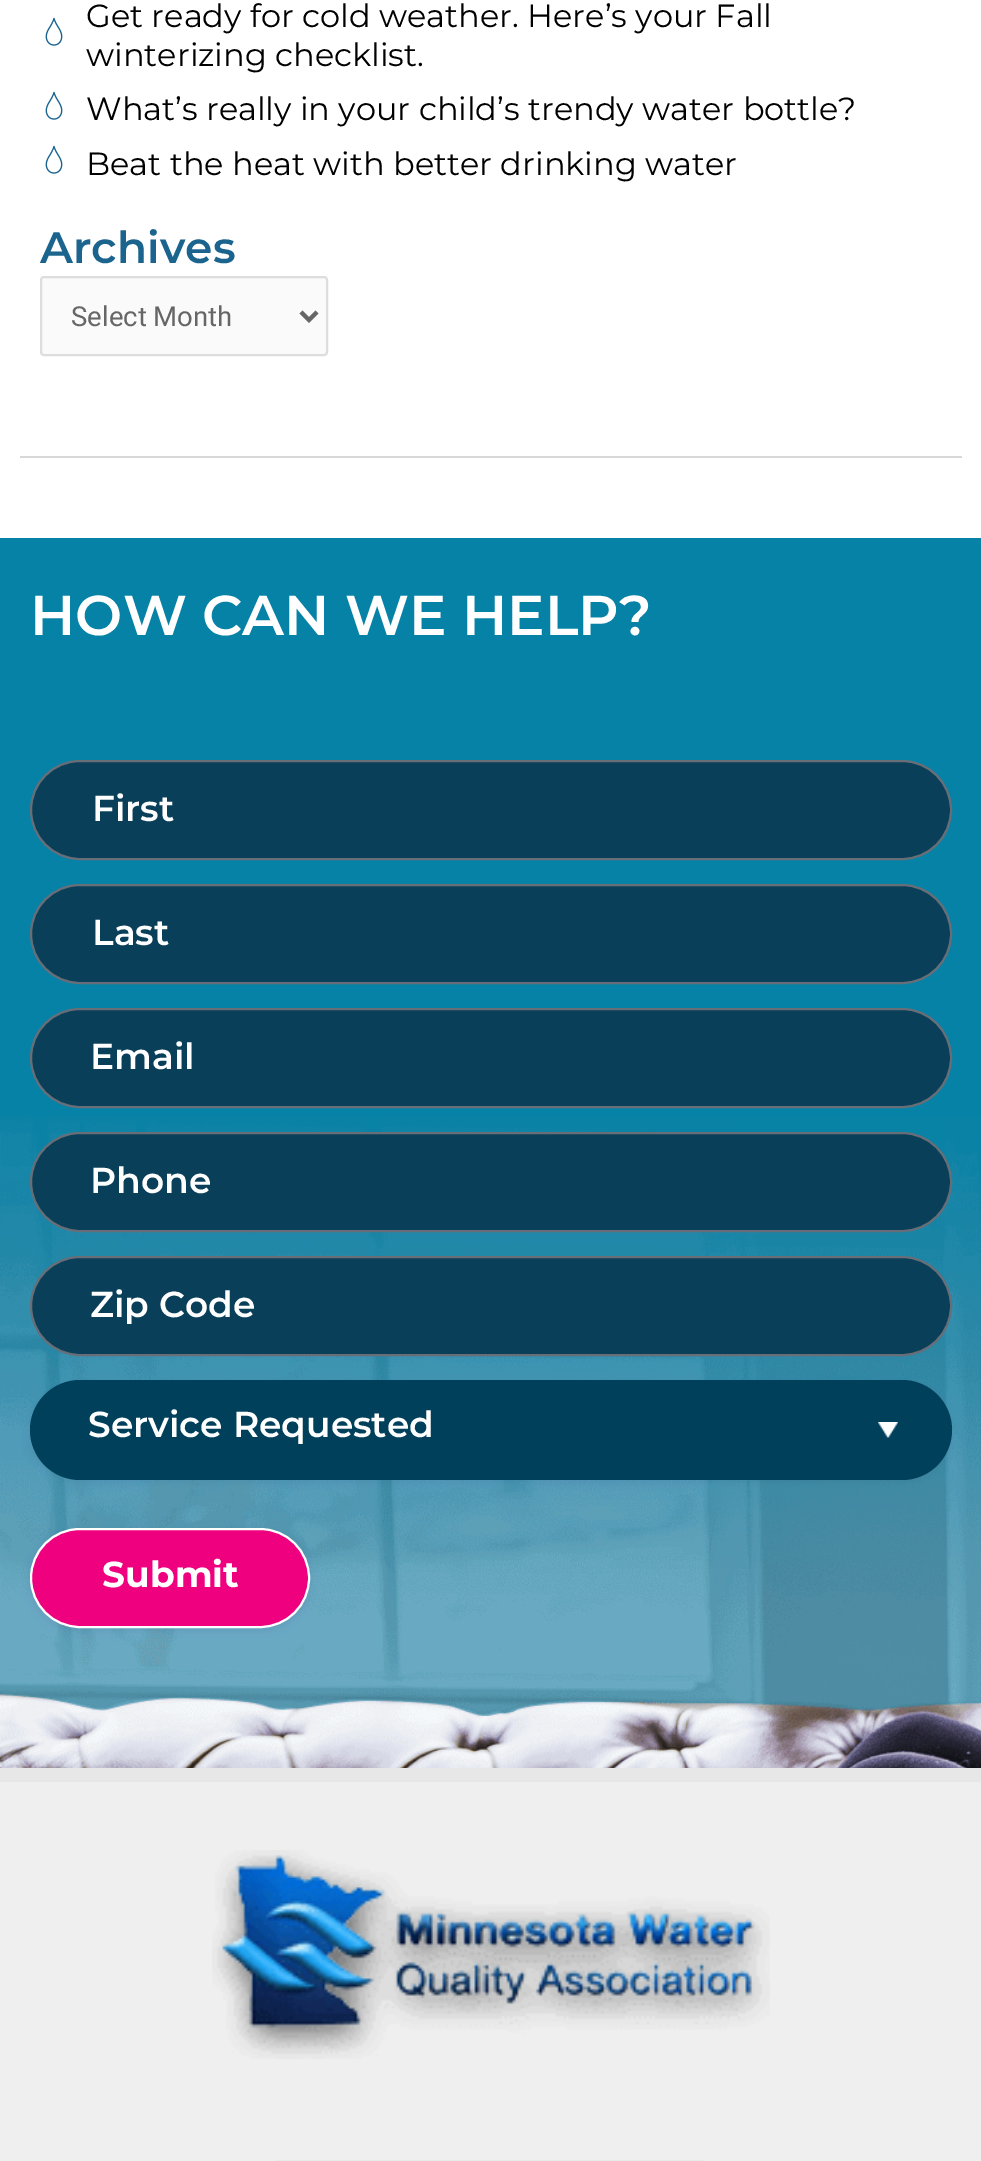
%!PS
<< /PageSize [981 2161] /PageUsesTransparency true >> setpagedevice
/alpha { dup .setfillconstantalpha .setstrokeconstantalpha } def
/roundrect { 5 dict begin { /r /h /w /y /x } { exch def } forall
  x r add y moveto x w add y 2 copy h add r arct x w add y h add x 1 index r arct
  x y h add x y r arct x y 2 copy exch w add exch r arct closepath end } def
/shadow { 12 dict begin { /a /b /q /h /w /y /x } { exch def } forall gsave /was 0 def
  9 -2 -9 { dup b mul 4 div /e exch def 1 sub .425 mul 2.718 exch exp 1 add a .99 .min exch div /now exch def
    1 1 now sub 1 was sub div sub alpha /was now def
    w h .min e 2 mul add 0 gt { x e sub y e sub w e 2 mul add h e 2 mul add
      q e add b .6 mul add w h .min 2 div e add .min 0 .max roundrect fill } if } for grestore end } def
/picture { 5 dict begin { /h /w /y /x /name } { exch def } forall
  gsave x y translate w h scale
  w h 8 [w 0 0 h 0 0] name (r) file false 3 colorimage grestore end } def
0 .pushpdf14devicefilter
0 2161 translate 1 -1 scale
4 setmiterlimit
1 setgray
0 0 981 2161 rectfill
0.847 setgray
20 456 942 2 rectfill
(img1.rgb) 45 17 18 29 picture
/Montserrat-Regular [32 0 0 -32 0 0] selectfont
0 setgray
86 27 moveto (Get ready for cold weather. Here’s your Fall) show
86 66 moveto (winterizing checklist.) show
(img1.rgb) 45 91 18 29 picture
86 120 moveto (What’s really in your child’s trendy water bottle?) show
(img1.rgb) 45 145 18 29 picture
86 175 moveto (Beat the heat with better drinking water) show
/Montserrat-SemiBold [44 0 0 -44 0 0] selectfont
0.102 0.392 0.557 setrgbcolor
40 263 moveto (Archives) show
0.98 setgray
41 277 286 78 3 roundrect gsave fill grestore
0.867 setgray
2 setlinewidth
stroke
0.4 setgray
4 setlinewidth
newpath 301 312 moveto 309 320 lineto 317 312 lineto stroke
/Roboto-Regular [27.5 0 0 -27.5 0 0] selectfont
71 326 moveto (Select Month) show
0.024 0.51 0.651 setrgbcolor
0 538 981 1230 rectfill
(img2.rgb) 0 1116 981 652 picture
/Montserrat-SemiBold [56 0 0 -56 0 0] selectfont
1 setgray
30 635 moveto (HOW CAN WE HELP?) show
0.039 0.247 0.349 setrgbcolor
31 761 920 98 49 roundrect gsave fill grestore
0.408 0.431 0.467 setrgbcolor
2 setlinewidth
stroke
/Montserrat-SemiBold [36 0 0 -36 0 0] selectfont
1 setgray
92 821 moveto (First) show
0.039 0.247 0.349 setrgbcolor
31 885 920 98 49 roundrect gsave fill grestore
0.408 0.431 0.467 setrgbcolor
stroke
1 setgray
92 945 moveto (Last) show
0.039 0.247 0.349 setrgbcolor
31 1009 920 98 49 roundrect gsave fill grestore
0.408 0.431 0.467 setrgbcolor
stroke
1 setgray
90 1069 moveto (Email) show
0.039 0.247 0.349 setrgbcolor
31 1133 920 98 49 roundrect gsave fill grestore
0.408 0.431 0.467 setrgbcolor
stroke
1 setgray
90 1193 moveto (Phone) show
0.039 0.247 0.349 setrgbcolor
31 1257 920 98 49 roundrect gsave fill grestore
0.408 0.431 0.467 setrgbcolor
stroke
1 setgray
90 1317 moveto (Zip Code) show
0.071 0.098 0.38 setrgbcolor
30 1382 922 100 50 4 0.08 shadow
0 0.251 0.357 setrgbcolor
30 1380 922 100 50 roundrect fill
(img3.rgb) 878 1422 20 16 picture
1 setgray
88 1437 moveto (Service Requested) show
0.071 0.098 0.38 setrgbcolor
30 1530 280 100 50 4 0.08 shadow
0.937 0 0.498 setrgbcolor
31 1529 278 98 49 roundrect gsave fill grestore
1 setgray
stroke
/Montserrat-Bold [36 0 0 -36 0 0] selectfont
102 1587 moveto (Submit) show
0.937 setgray
0 1782 981 379 rectfill
0.906 setgray
0 1768 981 14 rectfill
(img4.rgb) 212 1850 558 209 picture
(img5.rgb) 276 2160 427 1 picture
.poppdf14devicefilter showpage
